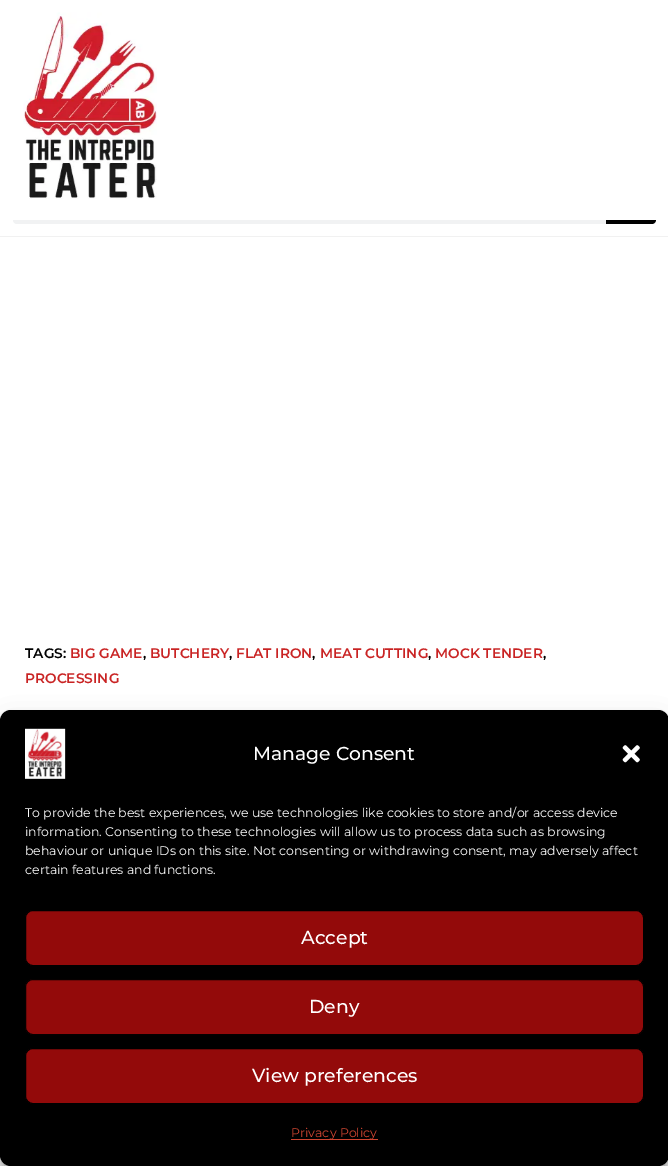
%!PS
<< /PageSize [668 1166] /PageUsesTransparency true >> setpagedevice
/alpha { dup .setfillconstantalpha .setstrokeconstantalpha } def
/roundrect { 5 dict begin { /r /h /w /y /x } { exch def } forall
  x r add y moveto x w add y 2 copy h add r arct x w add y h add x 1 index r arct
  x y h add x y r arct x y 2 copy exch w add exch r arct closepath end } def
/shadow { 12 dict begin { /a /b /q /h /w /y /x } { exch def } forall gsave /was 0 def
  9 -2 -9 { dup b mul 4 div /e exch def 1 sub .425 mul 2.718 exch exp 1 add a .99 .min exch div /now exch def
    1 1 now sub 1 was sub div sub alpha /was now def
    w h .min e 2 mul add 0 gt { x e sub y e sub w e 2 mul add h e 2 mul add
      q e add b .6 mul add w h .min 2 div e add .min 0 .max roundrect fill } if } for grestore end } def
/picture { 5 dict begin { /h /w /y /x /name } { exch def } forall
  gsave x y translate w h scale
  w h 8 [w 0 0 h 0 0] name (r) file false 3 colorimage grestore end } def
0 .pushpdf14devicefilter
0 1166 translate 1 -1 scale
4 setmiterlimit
1 setgray
0 0 668 1166 rectfill
0.945 setgray
0 236 668 1 rectfill
0.945 0.949 0.953 setrgbcolor
13 174 643 50 4 roundrect fill
0 setgray
newpath 606 174 moveto 652 174 lineto 654 174 656 176 656 178 curveto 656 220 lineto 656 222 654 224 652 224 curveto 606 224 lineto closepath fill
1 setgray
13 174 643 46 rectfill
(img1.rgb) 23 12 134 187 picture
/Montserrat-SemiBold [13.75 0 0 -13.75 0 0] selectfont
0 setgray
25 658 moveto (TAGS:) show
0.788 0.137 0.137 setrgbcolor
70 658 moveto (BIG GAME) show
0 setgray
143 658 moveto (,) show
0.788 0.137 0.137 setrgbcolor
150 658 moveto (BUTCHERY) show
0 setgray
229 658 moveto (,) show
0.788 0.137 0.137 setrgbcolor
236 658 moveto (FLAT IRON) show
0 setgray
312 658 moveto (,) show
0.788 0.137 0.137 setrgbcolor
320 658 moveto (MEAT CUTTING) show
0 setgray
428 658 moveto (,) show
0.788 0.137 0.137 setrgbcolor
435 658 moveto (MOCK TENDER) show
0 setgray
543 658 moveto (,) show
0.788 0.137 0.137 setrgbcolor
25 683 moveto (PROCESSING) show
0 setgray
0 718 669 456 11 4 0.23 shadow
0 723 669 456 11 12.5 0.19 shadow
0 710 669 456 11 roundrect fill
(img2.rgb) 25 728 41 51 picture
/Montserrat-Medium [18.75 0 0 -18.75 0 0] selectfont
1 setgray
253 760 moveto (Manage Consent) show
(img3.rgb) 622 745 18 18 picture
/Montserrat-Regular [12.5 0 0 -12.5 0 0] selectfont
25 817 moveto (To provide the best experiences, we use technologies like cookies to store and/or access device) show
25 836 moveto (information. Consenting to these technologies will allow us to process data such as browsing) show
25 855 moveto (behaviour or unique IDs on this site. Not consenting or withdrawing consent, may adversely affect) show
25 874 moveto (certain features and functions.) show
0.576 0.039 0.039 setrgbcolor
25.5 910.5 618 55 7.5 roundrect gsave fill grestore
0 setgray
stroke
/Montserrat-Medium [18.75 0 0 -18.75 0 0] selectfont
1 setgray
301 944 moveto (Accept) show
0.576 0.039 0.039 setrgbcolor
25.5 979.5 618 55 7.5 roundrect gsave fill grestore
0.024 0 0 setrgbcolor
stroke
1 setgray
309 1013 moveto (Deny) show
0.576 0.039 0.039 setrgbcolor
25.5 1048.5 618 55 7.5 roundrect gsave fill grestore
0 setgray
stroke
1 setgray
252 1082 moveto (View preferences) show
0.808 0.271 0.192 setrgbcolor
291 1139 87 1 rectfill
/Montserrat-Regular [12.5 0 0 -12.5 0 0] selectfont
291 1137 moveto (Privacy Policy) show
.poppdf14devicefilter showpage
